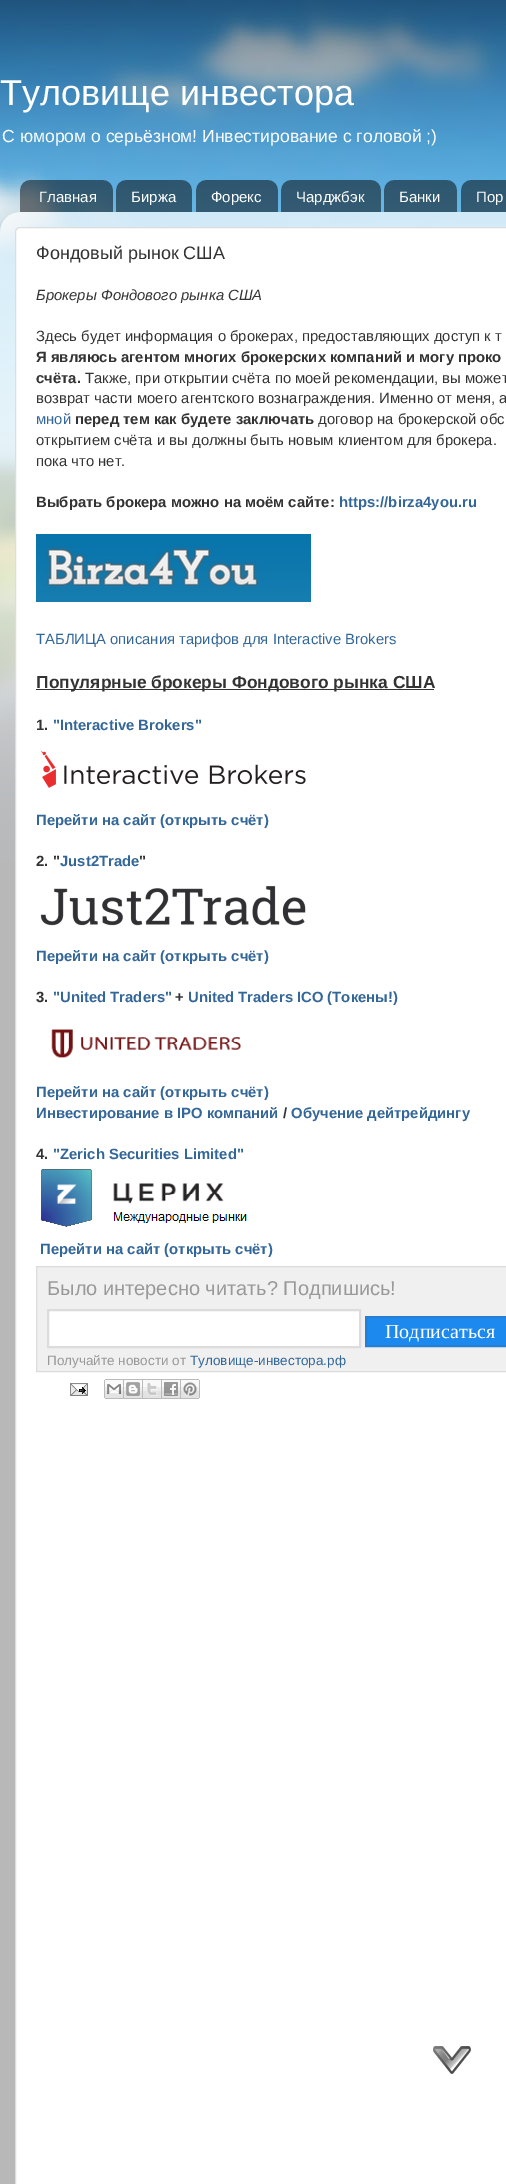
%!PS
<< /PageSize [506 2184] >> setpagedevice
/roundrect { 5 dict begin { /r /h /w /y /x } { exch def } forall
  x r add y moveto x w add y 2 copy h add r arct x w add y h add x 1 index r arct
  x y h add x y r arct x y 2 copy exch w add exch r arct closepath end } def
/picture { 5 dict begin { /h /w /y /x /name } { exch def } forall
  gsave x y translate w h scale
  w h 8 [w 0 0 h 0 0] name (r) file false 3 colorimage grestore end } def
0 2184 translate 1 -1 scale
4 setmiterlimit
1 setgray
0 0 506 2184 rectfill
(img1.rgb) 0 0 506 862 picture
/LiberationSans-Regular [36 0 0 -36 0 0] selectfont
0 105 moveto (Туловище инвестора) show
/LiberationSans-Regular [17.55 0 0 -17.55 0 0] selectfont
2 142 moveto (С юмором о серьёзном! Инвестирование с головой ;\)) show
(img2.rgb) 20 180 93 32 picture
/LiberationSans-Regular [15 0 0 -15 0 0] selectfont
39 202 moveto (Главная) show
(img3.rgb) 116 180 76 32 picture
131 202 moveto (Биржа) show
(img4.rgb) 196 180 82 32 picture
211 202 moveto (Форекс) show
(img5.rgb) 281 180 100 32 picture
296 202 moveto (Чарджбэк) show
(img6.rgb) 384 180 73 32 picture
399 202 moveto (Банки) show
(img7.rgb) 461 180 45 32 picture
476 202 moveto (Пор) show
(img8.rgb) 0 212 506 1972 picture
15.5 227.5 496 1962 4.5 roundrect gsave fill grestore
0.867 setgray
stroke
/LiberationSans-Regular [18 0 0 -18 0 0] selectfont
0.2 setgray
36 259 moveto (Фондовый рынок США) show
/LiberationSans-Italic [14.85 0 0 -14.85 0 0] selectfont
36 300 moveto (Брокеры Фондового рынка США) show
/LiberationSans-Regular [14.85 0 0 -14.85 0 0] selectfont
36 341 moveto (Здесь будет информация о брокерах, предоставляющих доступ к т) show
/LiberationSans-Bold [14.85 0 0 -14.85 0 0] selectfont
36 362 moveto (Я являюсь агентом многих брокерских компаний и могу проко) show
36 383 moveto (счёта.) show
/LiberationSans-Regular [14.85 0 0 -14.85 0 0] selectfont
85 383 moveto (Также, при открытии счёта по моей рекомендации, вы может) show
36 403 moveto (возврат части моего агентского вознаграждения. Именно от меня, а) show
0.2 0.4 0.6 setrgbcolor
36 424 moveto (мной) show
/LiberationSans-Bold [14.85 0 0 -14.85 0 0] selectfont
0.2 setgray
75 424 moveto (перед тем как будете заключать) show
/LiberationSans-Regular [14.85 0 0 -14.85 0 0] selectfont
318 424 moveto (договор на брокерской обс) show
36 445 moveto (открытием счёта и вы должны быть новым клиентом для брокера.) show
36 466 moveto (пока что нет.) show
/LiberationSans-Bold [14.85 0 0 -14.85 0 0] selectfont
36 507 moveto (Выбрать брокера можно на моём сайте:) show
0.2 0.4 0.6 setrgbcolor
339 507 moveto (https://birza4you.ru) show
(img9.rgb) 36 534 275 68 picture
/LiberationSans-Regular [14.85 0 0 -14.85 0 0] selectfont
36 644 moveto (ТАБЛИЦА описания тарифов для Interactive Brokers) show
0.2 setgray
36 689 398 1 rectfill
/LiberationSans-Bold [17.4 0 0 -17.4 0 0] selectfont
36 688 moveto (Популярные брокеры Фондового рынка США) show
/LiberationSans-Bold [14.85 0 0 -14.85 0 0] selectfont
36 730 moveto (1.) show
0.2 0.4 0.6 setrgbcolor
53 730 moveto ("Interactive Brokers") show
(img10.rgb) 41 751 265 37 picture
36 825 moveto (Перейти на сайт \(открыть счёт\)) show
0.2 setgray
36 866 moveto (2. ") show
0.2 0.4 0.6 setrgbcolor
60 866 moveto (Just2Trade) show
0.2 setgray
139 866 moveto (") show
(img11.rgb) 40 885 266 41 picture
0.2 0.4 0.6 setrgbcolor
36 961 moveto (Перейти на сайт \(открыть счёт\)) show
0.2 setgray
36 1002 moveto (3.) show
0.2 0.4 0.6 setrgbcolor
53 1002 moveto ("United Traders") show
0.2 setgray
175 1002 moveto (+) show
0.2 0.4 0.6 setrgbcolor
188 1002 moveto (United Traders ICO \(Токены!\)) show
(img12.rgb) 51 1029 190 29 picture
36 1097 moveto (Перейти на сайт \(открыть счёт\)) show
36 1118 moveto (Инвестирование в IPO компаний) show
0.2 setgray
283 1118 moveto (/) show
0.2 0.4 0.6 setrgbcolor
291 1118 moveto (Обучение дейтрейдингу) show
0.2 setgray
36 1159 moveto (4.) show
0.2 0.4 0.6 setrgbcolor
53 1159 moveto ("Zerich Securities Limited") show
(img13.rgb) 41 1169 206 58 picture
40 1254 moveto (Перейти на сайт \(открыть счёт\)) show
0.941 setgray
newpath 36.5 1266.5 moveto 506.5 1266.5 lineto 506.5 1371.5 lineto 36.5 1371.5 lineto closepath gsave fill grestore
0.863 setgray
stroke
/LiberationSans-Regular [20 0 0 -20 0 0] selectfont
0.6 setgray
47 1295 moveto (Было интересно читать? Подпишись!) show
1 setgray
newpath 48 1310 moveto 360 1310 lineto 360 1347 lineto 48 1347 lineto closepath gsave fill grestore
0.863 setgray
2 setlinewidth
stroke
0.106 0.537 0.933 setrgbcolor
newpath 366 1317 moveto 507 1317 lineto 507 1346 lineto 366 1346 lineto closepath gsave fill grestore
0.145 0.502 0.835 setrgbcolor
stroke
/LiberationSerif-Regular [20 0 0 -20 0 0] selectfont
1 setgray
385 1338 moveto (Подписаться) show
/LiberationSans-Regular [13.5 0 0 -13.5 0 0] selectfont
0.6 setgray
47 1365 moveto (Получайте новости от) show
0.2 0.4 0.6 setrgbcolor
190 1365 moveto (Туловище-инвестора.рф) show
(img14.rgb) 70 1383 18 13 picture
(img15.rgb) 104 1379 20 20 picture
(img16.rgb) 124 1379 19 20 picture
(img17.rgb) 143 1379 19 20 picture
(img18.rgb) 162 1379 19 20 picture
(img19.rgb) 181 1379 19 20 picture
(img20.rgb) 433 2046 38 28 picture
showpage
